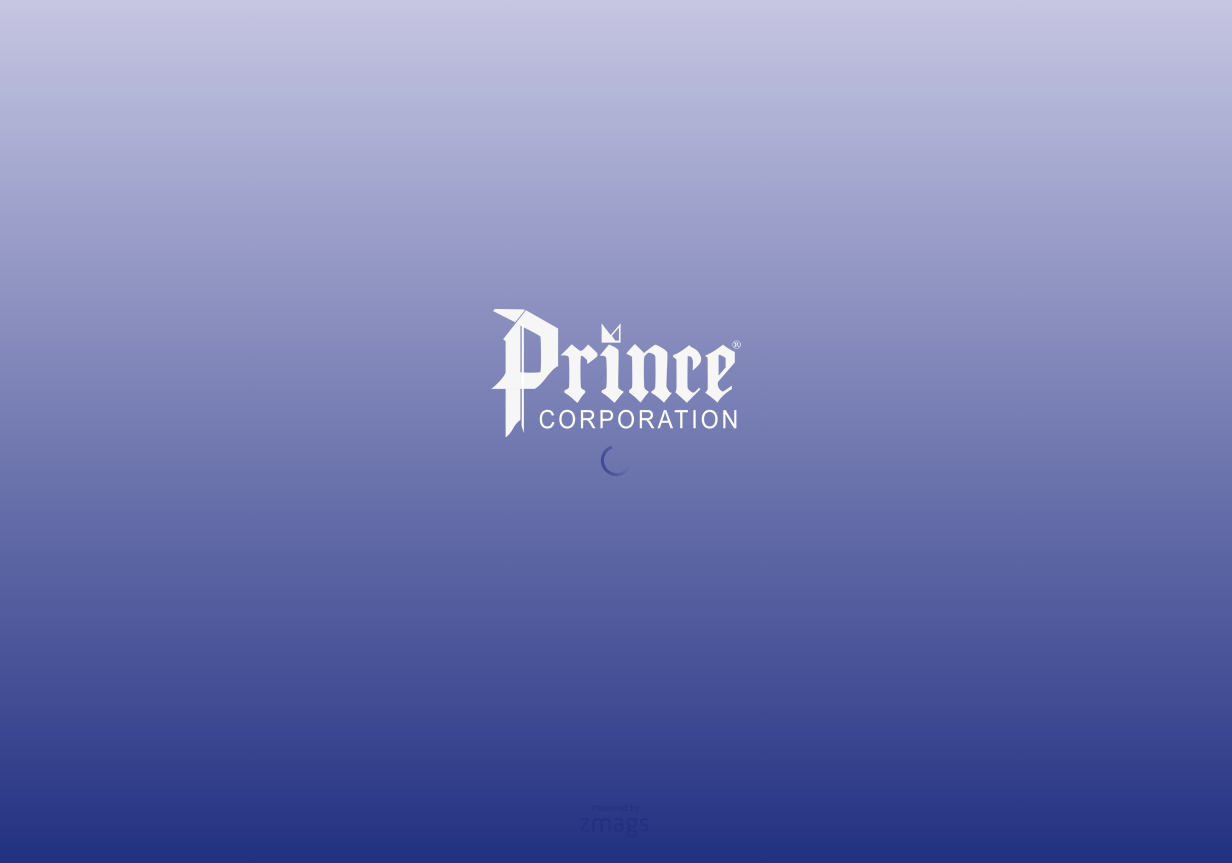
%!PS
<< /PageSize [1232 863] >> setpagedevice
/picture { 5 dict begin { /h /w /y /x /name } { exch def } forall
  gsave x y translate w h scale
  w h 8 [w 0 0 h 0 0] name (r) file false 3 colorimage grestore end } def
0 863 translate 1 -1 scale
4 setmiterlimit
1 setgray
0 0 1232 863 rectfill
(img1.rgb) 0 0 1232 863 picture
showpage
